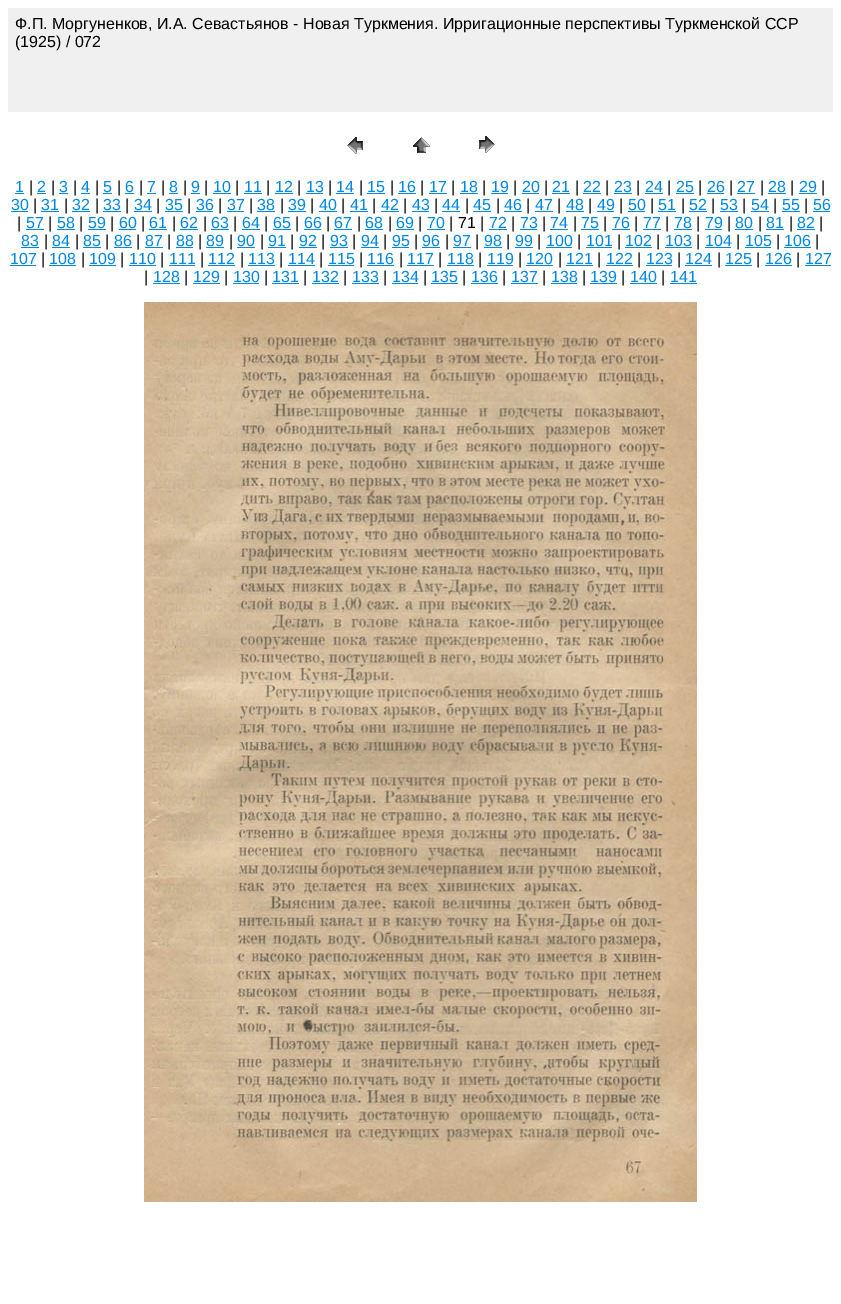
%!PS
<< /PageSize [841 1304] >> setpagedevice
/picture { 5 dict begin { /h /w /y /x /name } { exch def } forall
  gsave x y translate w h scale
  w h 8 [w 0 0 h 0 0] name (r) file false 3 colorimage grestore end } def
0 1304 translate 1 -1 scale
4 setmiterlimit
1 setgray
0 0 841 1304 rectfill
0.941 setgray
8 8 825 104 rectfill
/LiberationSans-Regular [16 0 0 -16 0 0] selectfont
0 setgray
15 29 moveto (Ф.П. Моргуненков, И.А. Севастьянов - Новая Туркмения. Ирригационные перспективы Туркменской ССР) show
15 47 moveto (\(1925\) / 072) show
(img1.rgb) 347 137 16 17 picture
(img2.rgb) 413 137 17 16 picture
(img3.rgb) 479 136 16 17 picture
0 0.537 0.882 setrgbcolor
15 192 moveto (1) show
15 193 9 1 rectfill
0 setgray
29 192 moveto (|) show
0 0.537 0.882 setrgbcolor
37 192 moveto (2) show
37 193 9 1 rectfill
0 setgray
51 192 moveto (|) show
0 0.537 0.882 setrgbcolor
59 192 moveto (3) show
59 193 9 1 rectfill
0 setgray
73 192 moveto (|) show
0 0.537 0.882 setrgbcolor
81 192 moveto (4) show
81 193 9 1 rectfill
0 setgray
95 192 moveto (|) show
0 0.537 0.882 setrgbcolor
103 192 moveto (5) show
103 193 9 1 rectfill
0 setgray
117 192 moveto (|) show
0 0.537 0.882 setrgbcolor
125 192 moveto (6) show
125 193 9 1 rectfill
0 setgray
139 192 moveto (|) show
0 0.537 0.882 setrgbcolor
147 192 moveto (7) show
147 193 9 1 rectfill
0 setgray
161 192 moveto (|) show
0 0.537 0.882 setrgbcolor
169 192 moveto (8) show
169 193 9 1 rectfill
0 setgray
183 192 moveto (|) show
0 0.537 0.882 setrgbcolor
191 192 moveto (9) show
191 193 9 1 rectfill
0 setgray
204 192 moveto (|) show
0 0.537 0.882 setrgbcolor
213 192 moveto (10) show
213 193 18 1 rectfill
0 setgray
235 192 moveto (|) show
0 0.537 0.882 setrgbcolor
244 192 moveto (11) show
244 193 18 1 rectfill
0 setgray
266 192 moveto (|) show
0 0.537 0.882 setrgbcolor
275 192 moveto (12) show
275 193 18 1 rectfill
0 setgray
297 192 moveto (|) show
0 0.537 0.882 setrgbcolor
306 192 moveto (13) show
306 193 17 1 rectfill
0 setgray
328 192 moveto (|) show
0 0.537 0.882 setrgbcolor
336 192 moveto (14) show
336 193 18 1 rectfill
0 setgray
359 192 moveto (|) show
0 0.537 0.882 setrgbcolor
367 192 moveto (15) show
367 193 18 1 rectfill
0 setgray
390 192 moveto (|) show
0 0.537 0.882 setrgbcolor
398 192 moveto (16) show
398 193 18 1 rectfill
0 setgray
420 192 moveto (|) show
0 0.537 0.882 setrgbcolor
429 192 moveto (17) show
429 193 18 1 rectfill
0 setgray
451 192 moveto (|) show
0 0.537 0.882 setrgbcolor
460 192 moveto (18) show
460 193 18 1 rectfill
0 setgray
482 192 moveto (|) show
0 0.537 0.882 setrgbcolor
491 192 moveto (19) show
491 193 17 1 rectfill
0 setgray
513 192 moveto (|) show
0 0.537 0.882 setrgbcolor
522 192 moveto (20) show
522 193 17 1 rectfill
0 setgray
544 192 moveto (|) show
0 0.537 0.882 setrgbcolor
552 192 moveto (21) show
552 193 18 1 rectfill
0 setgray
575 192 moveto (|) show
0 0.537 0.882 setrgbcolor
583 192 moveto (22) show
583 193 18 1 rectfill
0 setgray
605 192 moveto (|) show
0 0.537 0.882 setrgbcolor
614 192 moveto (23) show
614 193 18 1 rectfill
0 setgray
636 192 moveto (|) show
0 0.537 0.882 setrgbcolor
645 192 moveto (24) show
645 193 18 1 rectfill
0 setgray
667 192 moveto (|) show
0 0.537 0.882 setrgbcolor
676 192 moveto (25) show
676 193 18 1 rectfill
0 setgray
698 192 moveto (|) show
0 0.537 0.882 setrgbcolor
707 192 moveto (26) show
707 193 17 1 rectfill
0 setgray
729 192 moveto (|) show
0 0.537 0.882 setrgbcolor
737 192 moveto (27) show
737 193 18 1 rectfill
0 setgray
760 192 moveto (|) show
0 0.537 0.882 setrgbcolor
768 192 moveto (28) show
768 193 18 1 rectfill
0 setgray
790 192 moveto (|) show
0 0.537 0.882 setrgbcolor
799 192 moveto (29) show
799 193 18 1 rectfill
0 setgray
821 192 moveto (|) show
0 0.537 0.882 setrgbcolor
11 210 moveto (30) show
11 211 17 1 rectfill
0 setgray
33 210 moveto (|) show
0 0.537 0.882 setrgbcolor
41 210 moveto (31) show
41 211 18 1 rectfill
0 setgray
64 210 moveto (|) show
0 0.537 0.882 setrgbcolor
72 210 moveto (32) show
72 211 18 1 rectfill
0 setgray
95 210 moveto (|) show
0 0.537 0.882 setrgbcolor
103 210 moveto (33) show
103 211 18 1 rectfill
0 setgray
125 210 moveto (|) show
0 0.537 0.882 setrgbcolor
134 210 moveto (34) show
134 211 18 1 rectfill
0 setgray
156 210 moveto (|) show
0 0.537 0.882 setrgbcolor
165 210 moveto (35) show
165 211 18 1 rectfill
0 setgray
187 210 moveto (|) show
0 0.537 0.882 setrgbcolor
196 210 moveto (36) show
196 211 17 1 rectfill
0 setgray
218 210 moveto (|) show
0 0.537 0.882 setrgbcolor
227 210 moveto (37) show
227 211 17 1 rectfill
0 setgray
249 210 moveto (|) show
0 0.537 0.882 setrgbcolor
257 210 moveto (38) show
257 211 18 1 rectfill
0 setgray
280 210 moveto (|) show
0 0.537 0.882 setrgbcolor
288 210 moveto (39) show
288 211 18 1 rectfill
0 setgray
310 210 moveto (|) show
0 0.537 0.882 setrgbcolor
319 210 moveto (40) show
319 211 18 1 rectfill
0 setgray
341 210 moveto (|) show
0 0.537 0.882 setrgbcolor
350 210 moveto (41) show
350 211 18 1 rectfill
0 setgray
372 210 moveto (|) show
0 0.537 0.882 setrgbcolor
381 210 moveto (42) show
381 211 18 1 rectfill
0 setgray
403 210 moveto (|) show
0 0.537 0.882 setrgbcolor
412 210 moveto (43) show
412 211 17 1 rectfill
0 setgray
434 210 moveto (|) show
0 0.537 0.882 setrgbcolor
442 210 moveto (44) show
442 211 18 1 rectfill
0 setgray
465 210 moveto (|) show
0 0.537 0.882 setrgbcolor
473 210 moveto (45) show
473 211 18 1 rectfill
0 setgray
496 210 moveto (|) show
0 0.537 0.882 setrgbcolor
504 210 moveto (46) show
504 211 18 1 rectfill
0 setgray
526 210 moveto (|) show
0 0.537 0.882 setrgbcolor
535 210 moveto (47) show
535 211 18 1 rectfill
0 setgray
557 210 moveto (|) show
0 0.537 0.882 setrgbcolor
566 210 moveto (48) show
566 211 18 1 rectfill
0 setgray
588 210 moveto (|) show
0 0.537 0.882 setrgbcolor
597 210 moveto (49) show
597 211 17 1 rectfill
0 setgray
619 210 moveto (|) show
0 0.537 0.882 setrgbcolor
628 210 moveto (50) show
628 211 17 1 rectfill
0 setgray
650 210 moveto (|) show
0 0.537 0.882 setrgbcolor
658 210 moveto (51) show
658 211 18 1 rectfill
0 setgray
681 210 moveto (|) show
0 0.537 0.882 setrgbcolor
689 210 moveto (52) show
689 211 18 1 rectfill
0 setgray
711 210 moveto (|) show
0 0.537 0.882 setrgbcolor
720 210 moveto (53) show
720 211 18 1 rectfill
0 setgray
742 210 moveto (|) show
0 0.537 0.882 setrgbcolor
751 210 moveto (54) show
751 211 18 1 rectfill
0 setgray
773 210 moveto (|) show
0 0.537 0.882 setrgbcolor
782 210 moveto (55) show
782 211 18 1 rectfill
0 setgray
804 210 moveto (|) show
0 0.537 0.882 setrgbcolor
813 210 moveto (56) show
813 211 17 1 rectfill
0 setgray
17 228 moveto (|) show
0 0.537 0.882 setrgbcolor
26 228 moveto (57) show
26 229 18 1 rectfill
0 setgray
48 228 moveto (|) show
0 0.537 0.882 setrgbcolor
57 228 moveto (58) show
57 229 18 1 rectfill
0 setgray
79 228 moveto (|) show
0 0.537 0.882 setrgbcolor
88 228 moveto (59) show
88 229 18 1 rectfill
0 setgray
110 228 moveto (|) show
0 0.537 0.882 setrgbcolor
119 228 moveto (60) show
119 229 17 1 rectfill
0 setgray
141 228 moveto (|) show
0 0.537 0.882 setrgbcolor
149 228 moveto (61) show
149 229 18 1 rectfill
0 setgray
172 228 moveto (|) show
0 0.537 0.882 setrgbcolor
180 228 moveto (62) show
180 229 18 1 rectfill
0 setgray
203 228 moveto (|) show
0 0.537 0.882 setrgbcolor
211 228 moveto (63) show
211 229 18 1 rectfill
0 setgray
233 228 moveto (|) show
0 0.537 0.882 setrgbcolor
242 228 moveto (64) show
242 229 18 1 rectfill
0 setgray
264 228 moveto (|) show
0 0.537 0.882 setrgbcolor
273 228 moveto (65) show
273 229 18 1 rectfill
0 setgray
295 228 moveto (|) show
0 0.537 0.882 setrgbcolor
304 228 moveto (66) show
304 229 17 1 rectfill
0 setgray
326 228 moveto (|) show
0 0.537 0.882 setrgbcolor
334 228 moveto (67) show
334 229 18 1 rectfill
0 setgray
357 228 moveto (|) show
0 0.537 0.882 setrgbcolor
365 228 moveto (68) show
365 229 18 1 rectfill
0 setgray
388 228 moveto (|) show
0 0.537 0.882 setrgbcolor
396 228 moveto (69) show
396 229 18 1 rectfill
0 setgray
418 228 moveto (|) show
0 0.537 0.882 setrgbcolor
427 228 moveto (70) show
427 229 18 1 rectfill
0 setgray
449 228 moveto (| 71 |) show
0 0.537 0.882 setrgbcolor
489 228 moveto (72) show
489 229 18 1 rectfill
0 setgray
511 228 moveto (|) show
0 0.537 0.882 setrgbcolor
520 228 moveto (73) show
520 229 17 1 rectfill
0 setgray
542 228 moveto (|) show
0 0.537 0.882 setrgbcolor
550 228 moveto (74) show
550 229 18 1 rectfill
0 setgray
573 228 moveto (|) show
0 0.537 0.882 setrgbcolor
581 228 moveto (75) show
581 229 18 1 rectfill
0 setgray
603 228 moveto (|) show
0 0.537 0.882 setrgbcolor
612 228 moveto (76) show
612 229 18 1 rectfill
0 setgray
634 228 moveto (|) show
0 0.537 0.882 setrgbcolor
643 228 moveto (77) show
643 229 18 1 rectfill
0 setgray
665 228 moveto (|) show
0 0.537 0.882 setrgbcolor
674 228 moveto (78) show
674 229 18 1 rectfill
0 setgray
696 228 moveto (|) show
0 0.537 0.882 setrgbcolor
705 228 moveto (79) show
705 229 17 1 rectfill
0 setgray
727 228 moveto (|) show
0 0.537 0.882 setrgbcolor
735 228 moveto (80) show
735 229 18 1 rectfill
0 setgray
758 228 moveto (|) show
0 0.537 0.882 setrgbcolor
766 228 moveto (81) show
766 229 18 1 rectfill
0 setgray
789 228 moveto (|) show
0 0.537 0.882 setrgbcolor
797 228 moveto (82) show
797 229 18 1 rectfill
0 setgray
819 228 moveto (|) show
0 0.537 0.882 setrgbcolor
21 246 moveto (83) show
21 247 18 1 rectfill
0 setgray
44 246 moveto (|) show
0 0.537 0.882 setrgbcolor
52 246 moveto (84) show
52 247 18 1 rectfill
0 setgray
75 246 moveto (|) show
0 0.537 0.882 setrgbcolor
83 246 moveto (85) show
83 247 18 1 rectfill
0 setgray
105 246 moveto (|) show
0 0.537 0.882 setrgbcolor
114 246 moveto (86) show
114 247 18 1 rectfill
0 setgray
136 246 moveto (|) show
0 0.537 0.882 setrgbcolor
145 246 moveto (87) show
145 247 18 1 rectfill
0 setgray
167 246 moveto (|) show
0 0.537 0.882 setrgbcolor
176 246 moveto (88) show
176 247 17 1 rectfill
0 setgray
198 246 moveto (|) show
0 0.537 0.882 setrgbcolor
206 246 moveto (89) show
206 247 18 1 rectfill
0 setgray
229 246 moveto (|) show
0 0.537 0.882 setrgbcolor
237 246 moveto (90) show
237 247 18 1 rectfill
0 setgray
260 246 moveto (|) show
0 0.537 0.882 setrgbcolor
268 246 moveto (91) show
268 247 18 1 rectfill
0 setgray
290 246 moveto (|) show
0 0.537 0.882 setrgbcolor
299 246 moveto (92) show
299 247 18 1 rectfill
0 setgray
321 246 moveto (|) show
0 0.537 0.882 setrgbcolor
330 246 moveto (93) show
330 247 18 1 rectfill
0 setgray
352 246 moveto (|) show
0 0.537 0.882 setrgbcolor
361 246 moveto (94) show
361 247 18 1 rectfill
0 setgray
383 246 moveto (|) show
0 0.537 0.882 setrgbcolor
392 246 moveto (95) show
392 247 17 1 rectfill
0 setgray
414 246 moveto (|) show
0 0.537 0.882 setrgbcolor
422 246 moveto (96) show
422 247 18 1 rectfill
0 setgray
445 246 moveto (|) show
0 0.537 0.882 setrgbcolor
453 246 moveto (97) show
453 247 18 1 rectfill
0 setgray
475 246 moveto (|) show
0 0.537 0.882 setrgbcolor
484 246 moveto (98) show
484 247 18 1 rectfill
0 setgray
506 246 moveto (|) show
0 0.537 0.882 setrgbcolor
515 246 moveto (99) show
515 247 18 1 rectfill
0 setgray
537 246 moveto (|) show
0 0.537 0.882 setrgbcolor
546 246 moveto (100) show
546 247 26 1 rectfill
0 setgray
577 246 moveto (|) show
0 0.537 0.882 setrgbcolor
586 246 moveto (101) show
586 247 26 1 rectfill
0 setgray
617 246 moveto (|) show
0 0.537 0.882 setrgbcolor
625 246 moveto (102) show
625 247 27 1 rectfill
0 setgray
656 246 moveto (|) show
0 0.537 0.882 setrgbcolor
665 246 moveto (103) show
665 247 27 1 rectfill
0 setgray
696 246 moveto (|) show
0 0.537 0.882 setrgbcolor
705 246 moveto (104) show
705 247 26 1 rectfill
0 setgray
736 246 moveto (|) show
0 0.537 0.882 setrgbcolor
745 246 moveto (105) show
745 247 26 1 rectfill
0 setgray
776 246 moveto (|) show
0 0.537 0.882 setrgbcolor
784 246 moveto (106) show
784 247 27 1 rectfill
0 setgray
815 246 moveto (|) show
0 0.537 0.882 setrgbcolor
10 264 moveto (107) show
10 265 26 1 rectfill
0 setgray
41 264 moveto (|) show
0 0.537 0.882 setrgbcolor
49 264 moveto (108) show
49 265 27 1 rectfill
0 setgray
81 264 moveto (|) show
0 0.537 0.882 setrgbcolor
89 264 moveto (109) show
89 265 27 1 rectfill
0 setgray
120 264 moveto (|) show
0 0.537 0.882 setrgbcolor
129 264 moveto (110) show
129 265 27 1 rectfill
0 setgray
160 264 moveto (|) show
0 0.537 0.882 setrgbcolor
169 264 moveto (111) show
169 265 26 1 rectfill
0 setgray
200 264 moveto (|) show
0 0.537 0.882 setrgbcolor
208 264 moveto (112) show
208 265 27 1 rectfill
0 setgray
240 264 moveto (|) show
0 0.537 0.882 setrgbcolor
248 264 moveto (113) show
248 265 27 1 rectfill
0 setgray
279 264 moveto (|) show
0 0.537 0.882 setrgbcolor
288 264 moveto (114) show
288 265 27 1 rectfill
0 setgray
319 264 moveto (|) show
0 0.537 0.882 setrgbcolor
328 264 moveto (115) show
328 265 26 1 rectfill
0 setgray
359 264 moveto (|) show
0 0.537 0.882 setrgbcolor
367 264 moveto (116) show
367 265 27 1 rectfill
0 setgray
399 264 moveto (|) show
0 0.537 0.882 setrgbcolor
407 264 moveto (117) show
407 265 27 1 rectfill
0 setgray
438 264 moveto (|) show
0 0.537 0.882 setrgbcolor
447 264 moveto (118) show
447 265 27 1 rectfill
0 setgray
478 264 moveto (|) show
0 0.537 0.882 setrgbcolor
487 264 moveto (119) show
487 265 26 1 rectfill
0 setgray
518 264 moveto (|) show
0 0.537 0.882 setrgbcolor
526 264 moveto (120) show
526 265 27 1 rectfill
0 setgray
558 264 moveto (|) show
0 0.537 0.882 setrgbcolor
566 264 moveto (121) show
566 265 27 1 rectfill
0 setgray
597 264 moveto (|) show
0 0.537 0.882 setrgbcolor
606 264 moveto (122) show
606 265 27 1 rectfill
0 setgray
637 264 moveto (|) show
0 0.537 0.882 setrgbcolor
646 264 moveto (123) show
646 265 26 1 rectfill
0 setgray
677 264 moveto (|) show
0 0.537 0.882 setrgbcolor
685 264 moveto (124) show
685 265 27 1 rectfill
0 setgray
717 264 moveto (|) show
0 0.537 0.882 setrgbcolor
725 264 moveto (125) show
725 265 27 1 rectfill
0 setgray
756 264 moveto (|) show
0 0.537 0.882 setrgbcolor
765 264 moveto (126) show
765 265 27 1 rectfill
0 setgray
796 264 moveto (|) show
0 0.537 0.882 setrgbcolor
805 264 moveto (127) show
805 265 26 1 rectfill
0 setgray
144 282 moveto (|) show
0 0.537 0.882 setrgbcolor
153 282 moveto (128) show
153 283 27 1 rectfill
0 setgray
184 282 moveto (|) show
0 0.537 0.882 setrgbcolor
193 282 moveto (129) show
193 283 27 1 rectfill
0 setgray
224 282 moveto (|) show
0 0.537 0.882 setrgbcolor
233 282 moveto (130) show
233 283 26 1 rectfill
0 setgray
264 282 moveto (|) show
0 0.537 0.882 setrgbcolor
272 282 moveto (131) show
272 283 27 1 rectfill
0 setgray
303 282 moveto (|) show
0 0.537 0.882 setrgbcolor
312 282 moveto (132) show
312 283 27 1 rectfill
0 setgray
343 282 moveto (|) show
0 0.537 0.882 setrgbcolor
352 282 moveto (133) show
352 283 27 1 rectfill
0 setgray
383 282 moveto (|) show
0 0.537 0.882 setrgbcolor
392 282 moveto (134) show
392 283 26 1 rectfill
0 setgray
423 282 moveto (|) show
0 0.537 0.882 setrgbcolor
431 282 moveto (135) show
431 283 27 1 rectfill
0 setgray
462 282 moveto (|) show
0 0.537 0.882 setrgbcolor
471 282 moveto (136) show
471 283 27 1 rectfill
0 setgray
502 282 moveto (|) show
0 0.537 0.882 setrgbcolor
511 282 moveto (137) show
511 283 27 1 rectfill
0 setgray
542 282 moveto (|) show
0 0.537 0.882 setrgbcolor
551 282 moveto (138) show
551 283 26 1 rectfill
0 setgray
582 282 moveto (|) show
0 0.537 0.882 setrgbcolor
590 282 moveto (139) show
590 283 27 1 rectfill
0 setgray
621 282 moveto (|) show
0 0.537 0.882 setrgbcolor
630 282 moveto (140) show
630 283 27 1 rectfill
0 setgray
661 282 moveto (|) show
0 0.537 0.882 setrgbcolor
670 282 moveto (141) show
670 283 27 1 rectfill
(img4.rgb) 144 302 553 900 picture
showpage
